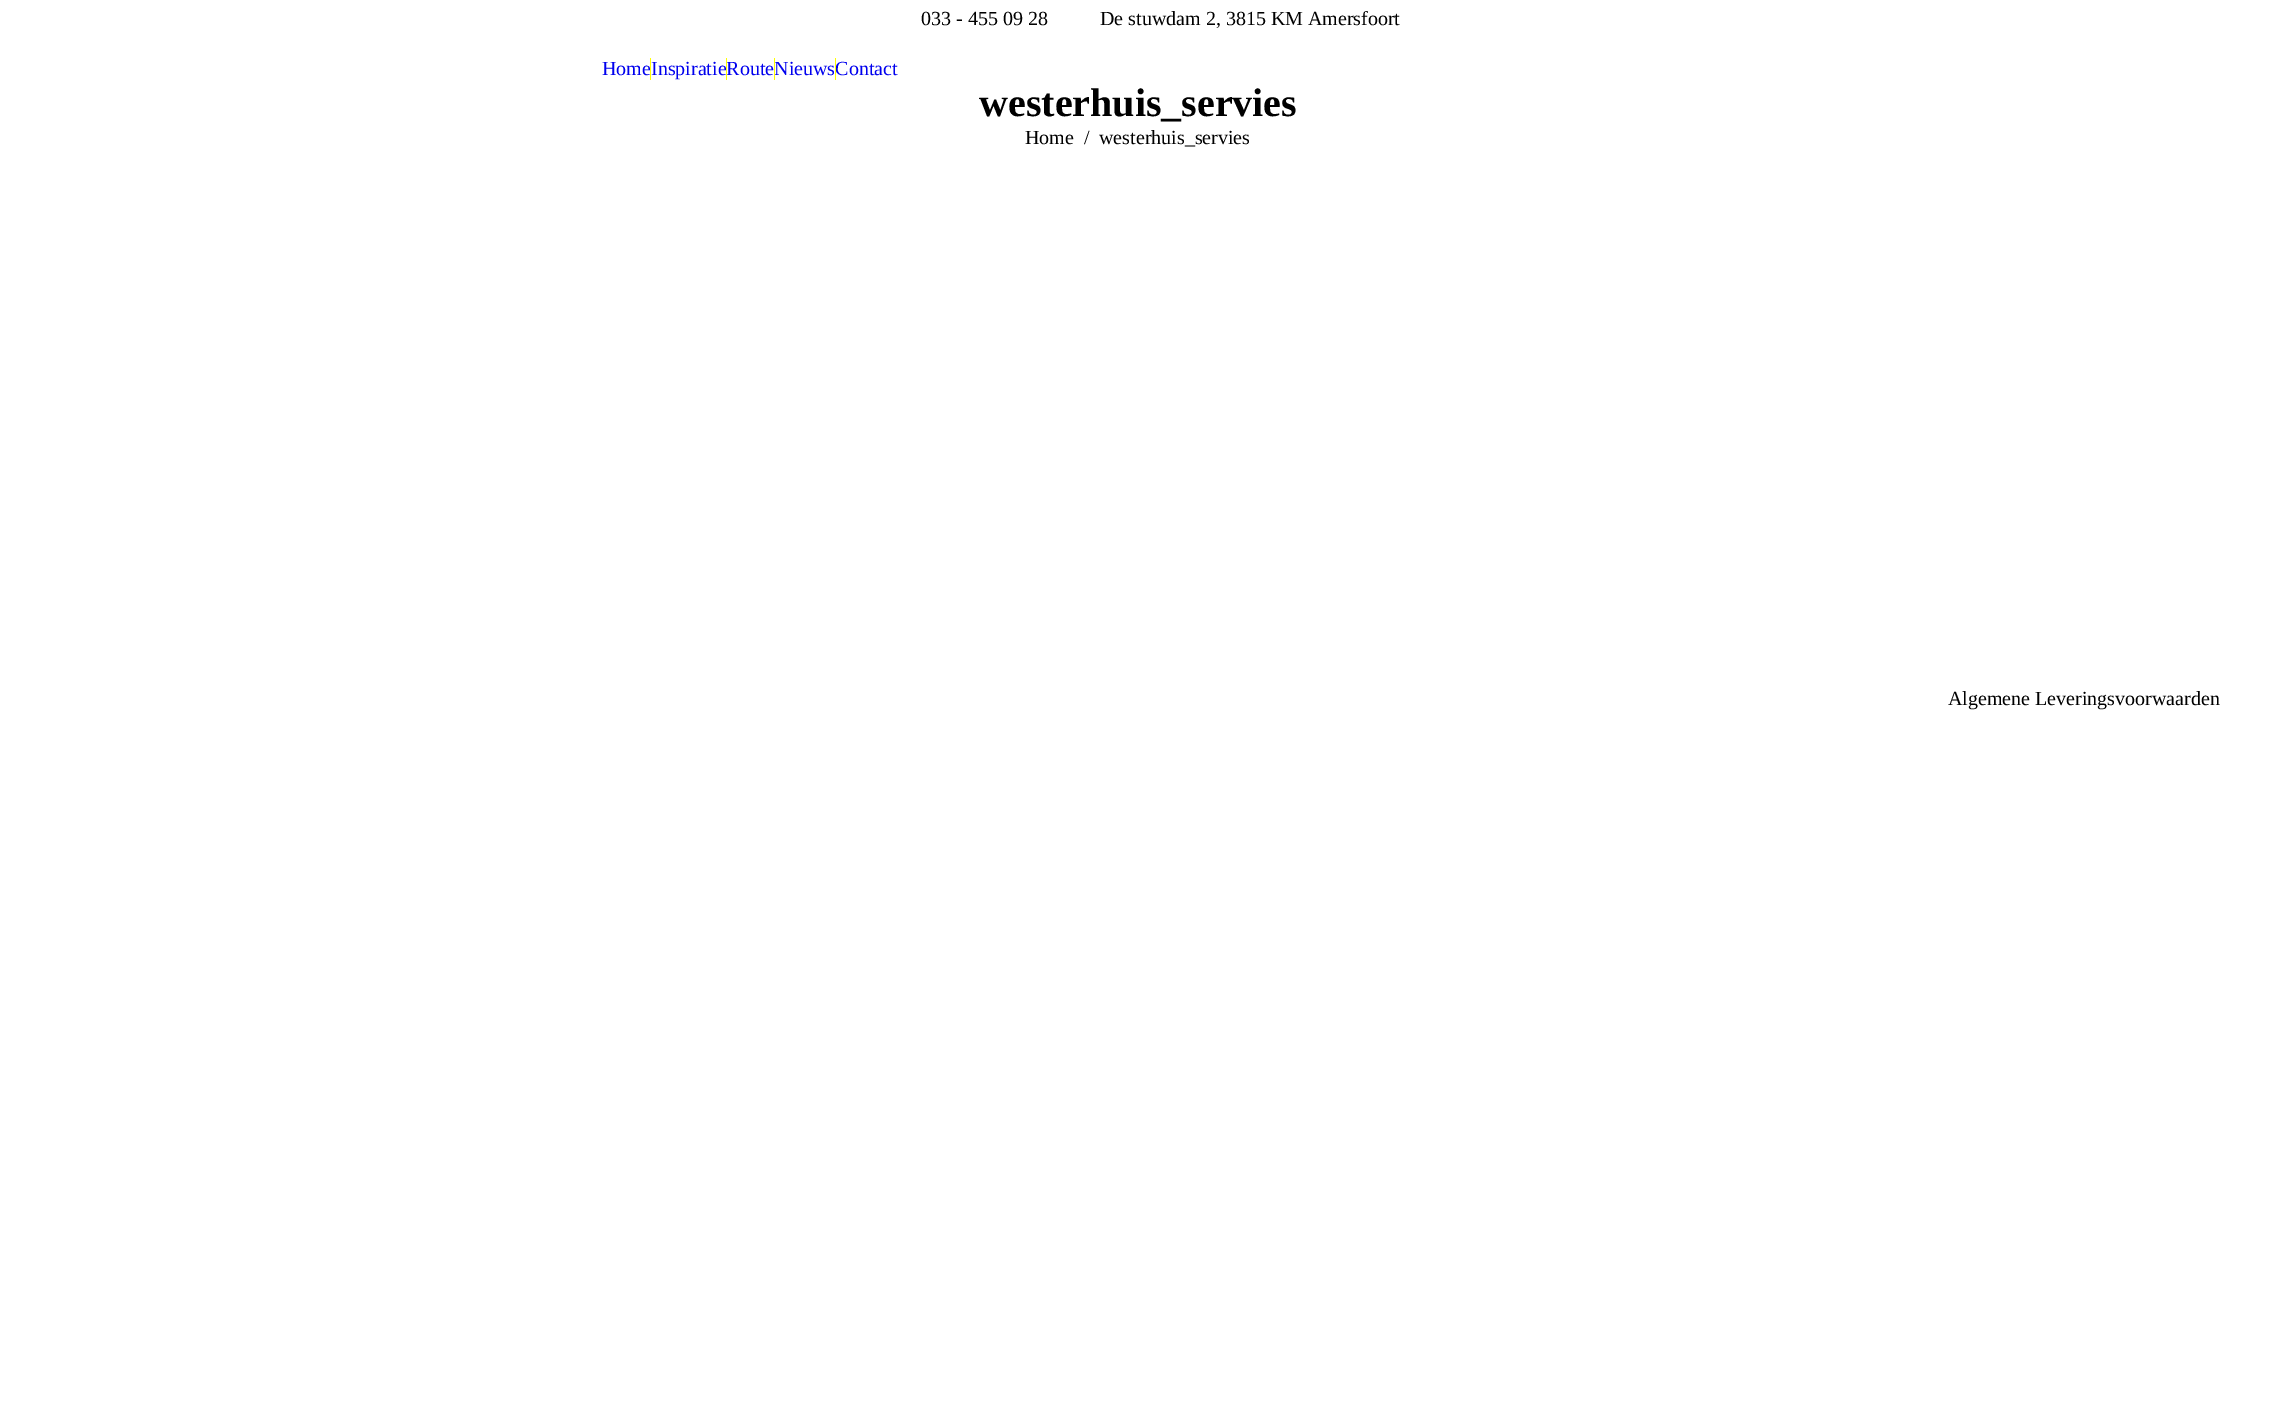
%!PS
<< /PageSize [2275 1405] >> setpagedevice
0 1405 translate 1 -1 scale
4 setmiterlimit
1 setgray
0 0 2275 1405 rectfill
/LiberationSerif-Regular [20 0 0 -20 0 0] selectfont
0 setgray
921 25 moveto (033 - 455 09 28) show
1100 25 moveto (De stuwdam 2, 3815 KM Amersfoort) show
0 0 0.933 setrgbcolor
602 75 moveto (HomeInspiratieRouteNieuwsContact) show
1 1 0 setrgbcolor
650 58 1 22 rectfill
726 58 1 22 rectfill
774 58 1 22 rectfill
835 58 1 22 rectfill
/LiberationSerif-Bold [40 0 0 -40 0 0] selectfont
0 setgray
979 116 moveto (westerhuis_servies) show
/LiberationSerif-Regular [20 0 0 -20 0 0] selectfont
1025 144 moveto (Home) show
1084 144 moveto (/) show
1099 144 moveto (westerhuis_servies) show
1948 705 moveto (Algemene Leveringsvoorwaarden) show
showpage
